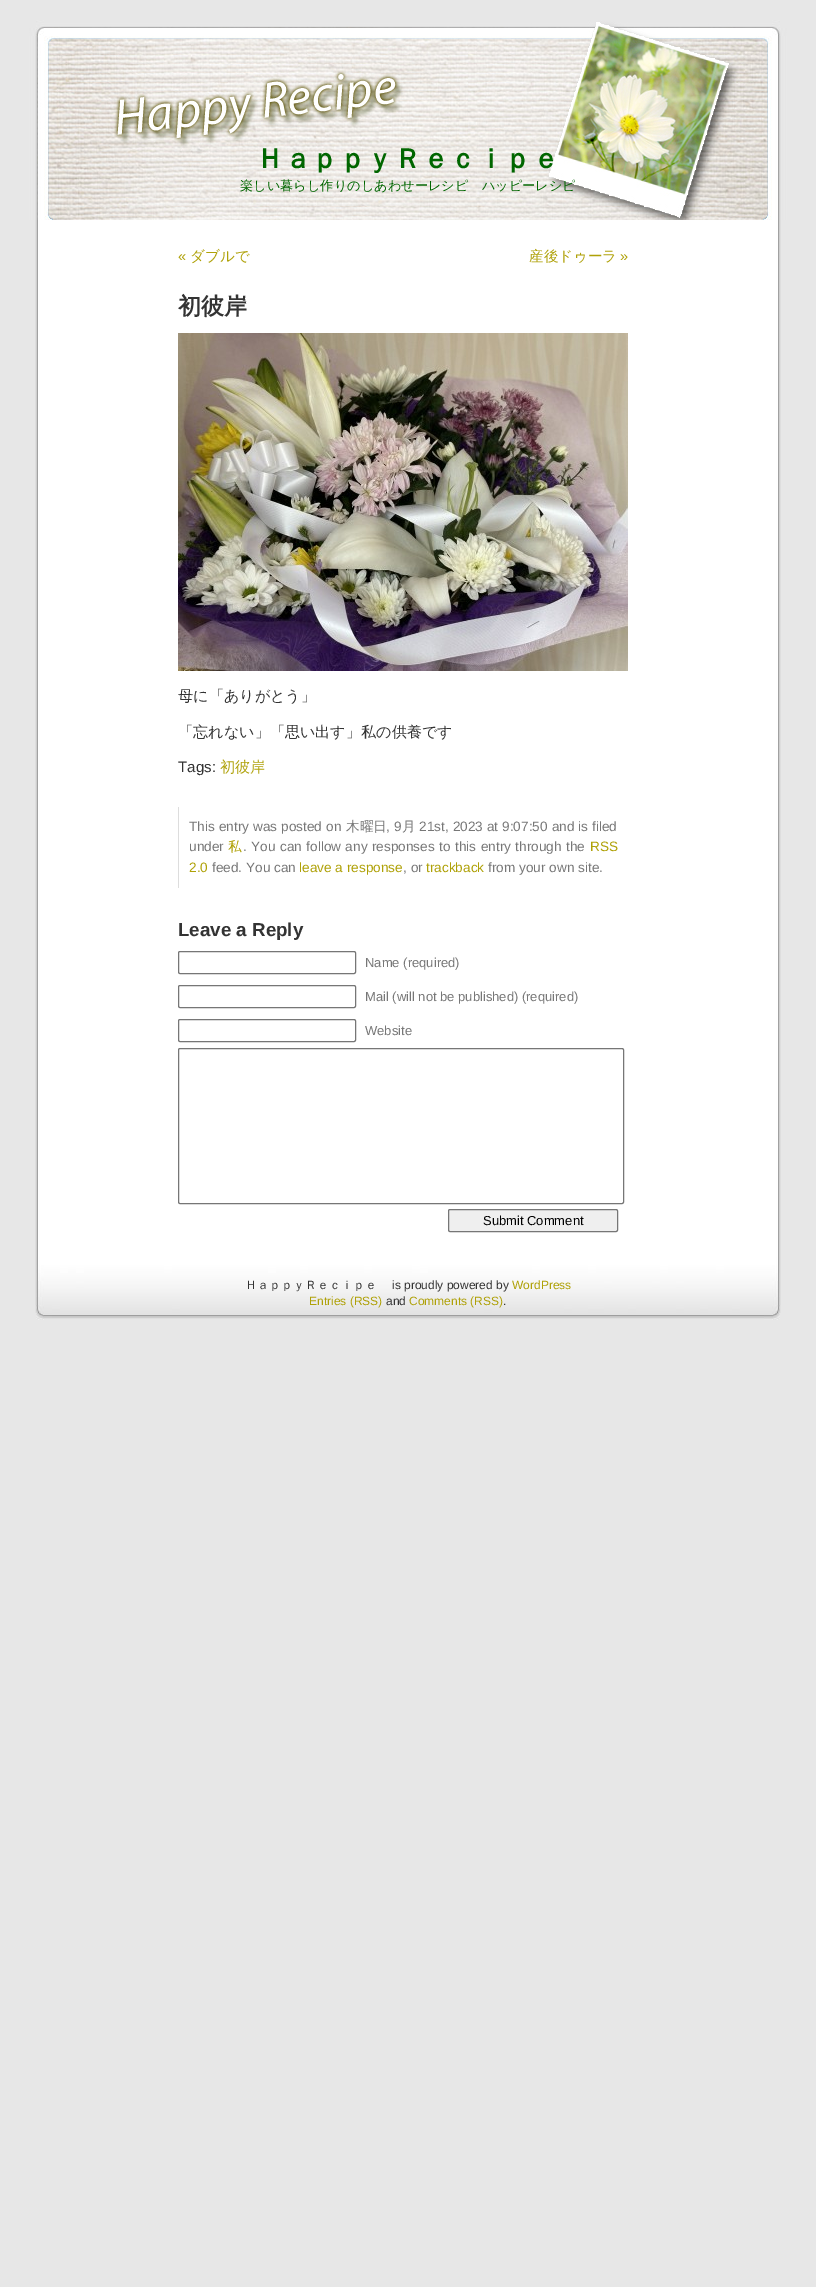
%!PS
<< /PageSize [816 2287] >> setpagedevice
/roundrect { 5 dict begin { /r /h /w /y /x } { exch def } forall
  x r add y moveto x w add y 2 copy h add r arct x w add y h add x 1 index r arct
  x y h add x y r arct x y 2 copy exch w add exch r arct closepath end } def
/picture { 5 dict begin { /h /w /y /x /name } { exch def } forall
  gsave x y translate w h scale
  w h 8 [w 0 0 h 0 0] name (r) file false 3 colorimage grestore end } def
0 2287 translate 1 -1 scale
4 setmiterlimit
0.906 setgray
0 0 816 2287 rectfill
(img1.rgb) 35 220 746 1037 picture
(img2.rgb) 29 20 758 200 picture
/WenQuanYiZenHei-Bold [27.6 0 0 -27.6 0 0] selectfont
0 0.4 0 setrgbcolor
256 168 moveto (ＨａｐｐｙＲｅｃｉｐｅ) show
/WenQuanYiZenHei-Medium [13.2 0 0 -13.2 0 0] selectfont
240 190 moveto (楽しい暮らし作りのしあわせーレシピ　ハッピーレシピ) show
/LiberationSans-Regular [14.5 0 0 -14.5 0 0] selectfont
0.686 0.631 0.027 setrgbcolor
178 261 moveto («) show
/WenQuanYiZenHei-Medium [14.5 0 0 -14.5 0 0] selectfont
190 261 moveto (ダブルで) show
529 261 moveto (産後ドゥーラ) show
/LiberationSans-Regular [14.5 0 0 -14.5 0 0] selectfont
620 261 moveto (») show
/WenQuanYiZenHei-Bold [23 0 0 -23 0 0] selectfont
0.2 setgray
178 314 moveto (初彼岸) show
(img3.rgb) 178 333 450 338 picture
/WenQuanYiZenHei-Medium [15.1 0 0 -15.1 0 0] selectfont
178 701 moveto (母に「ありがとう」) show
178 737 moveto (「忘れない」「思い出す」私の供養です) show
/LiberationSans-Regular [15.1 0 0 -15.1 0 0] selectfont
178 772 moveto (Tags:) show
/WenQuanYiZenHei-Medium [15.1 0 0 -15.1 0 0] selectfont
0.686 0.631 0.027 setrgbcolor
220 772 moveto (初彼岸) show
0.867 setgray
178 807 1 81 rectfill
/LiberationSans-Regular [13.6 0 0 -13.6 0 0] selectfont
0.467 setgray
189 831 moveto 0.25 0 32 (This entry was posted on) widthshow
/WenQuanYiZenHei-Medium [13.6 0 0 -13.6 0 0] selectfont
346 831 moveto (木曜日) show
/LiberationSans-Regular [13.6 0 0 -13.6 0 0] selectfont
386 831 moveto 0.25 0 32 (, 9) widthshow
/WenQuanYiZenHei-Medium [13.6 0 0 -13.6 0 0] selectfont
402 831 moveto (月) show
/LiberationSans-Regular [13.6 0 0 -13.6 0 0] selectfont
419 831 moveto 0.25 0 32 (21st, 2023 at 9:07:50 and is filed) widthshow
189 851 moveto (under) show
/WenQuanYiZenHei-Medium [13.6 0 0 -13.6 0 0] selectfont
0.686 0.631 0.027 setrgbcolor
228 851 moveto (私) show
/LiberationSans-Regular [13.6 0 0 -13.6 0 0] selectfont
0.467 setgray
243 851 moveto (.) show
251 851 moveto 0.75 0 32 (You can follow any responses to this entry through the) widthshow
0.686 0.631 0.027 setrgbcolor
590 851 moveto (RSS) show
189 872 moveto (2.0) show
0.467 setgray
212 872 moveto (feed. You can) show
0.686 0.631 0.027 setrgbcolor
299 872 moveto (leave a response) show
0.467 setgray
403 872 moveto (, or) show
0.686 0.631 0.027 setrgbcolor
426 872 moveto (trackback) show
0.467 setgray
488 872 moveto (from your own site.) show
/LiberationSans-Bold [18.75 0 0 -18.75 0 0] selectfont
0.2 setgray
178 936 moveto (Leave a Reply) show
0.463 setgray
178.5 951.5 177 22 1.5 roundrect stroke
/LiberationSans-Regular [13 0 0 -13 0 0] selectfont
0.467 setgray
365 967 moveto (Name \(required\)) show
0.463 setgray
178.5 985.5 177 22 1.5 roundrect stroke
0.467 setgray
365 1001 moveto (Mail \(will not be published\) \(required\)) show
0.463 setgray
178.5 1019.5 177 22 1.5 roundrect stroke
0.467 setgray
365 1035 moveto (Website) show
0.463 setgray
178.5 1048.5 445 155 1.5 roundrect stroke
0.937 setgray
448.5 1209.5 169 22 1.5 roundrect gsave fill grestore
0.463 setgray
stroke
0 setgray
483 1225 moveto (Submit Comment) show
(img4.rgb) 35 1257 746 63 picture
/WenQuanYiZenHei-Medium [12 0 0 -12 0 0] selectfont
0.2 setgray
245 1289 moveto (ＨａｐｐｙＲｅｃｉｐｅ) show
/LiberationSans-Regular [12 0 0 -12 0 0] selectfont
392 1289 moveto (is proudly powered by) show
0.686 0.631 0.027 setrgbcolor
512 1289 moveto (WordPress) show
309 1305 moveto (Entries \(RSS\)) show
0.2 setgray
386 1305 moveto (and) show
0.686 0.631 0.027 setrgbcolor
409 1305 moveto (Comments \(RSS\)) show
0.2 setgray
503 1305 moveto (.) show
showpage
